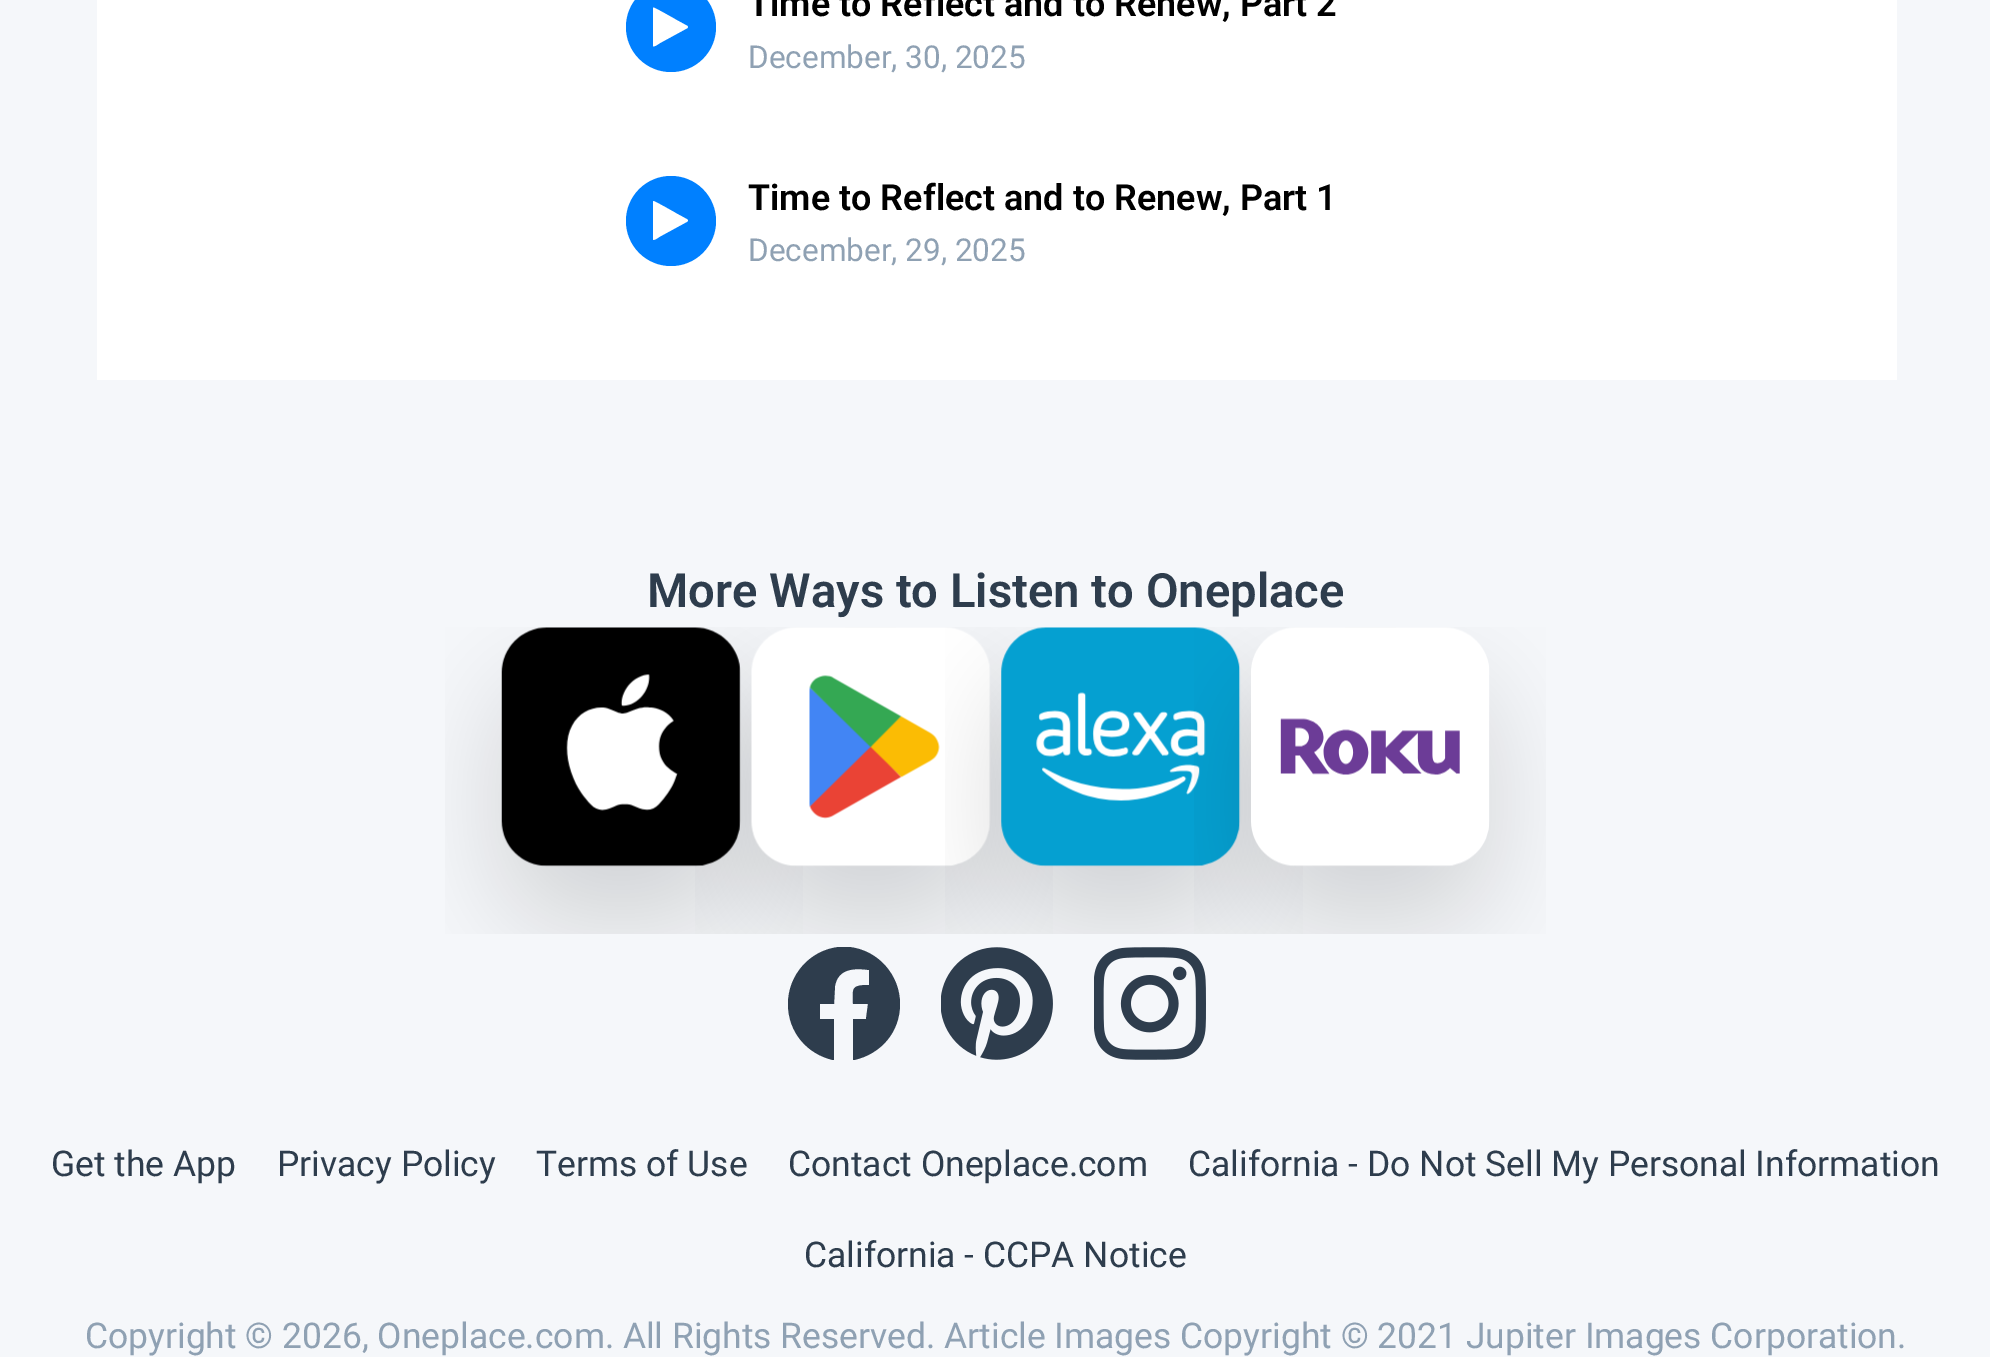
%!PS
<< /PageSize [1990 1357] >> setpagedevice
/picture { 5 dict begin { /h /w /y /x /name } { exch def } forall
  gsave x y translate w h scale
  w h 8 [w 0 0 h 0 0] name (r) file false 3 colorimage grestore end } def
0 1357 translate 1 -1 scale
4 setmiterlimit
0.961 0.969 0.98 setrgbcolor
0 0 1990 1357 rectfill
1 setgray
97 0 1800 380 rectfill
0 0.502 1 setrgbcolor
newpath 671 27 45 0 360 arc closepath fill
1 setgray
newpath 687.5 28 moveto 660 43 lineto 659 43.5 654 47.5 653 46 curveto 653 8 lineto 653.5 7.5 lineto 654.5 7.5 674 18.5 676.5 20 curveto 687.5 26 lineto 688 27 lineto closepath fill
/Roboto-SemiBold [36 0 0 -36 0 0] selectfont
0 setgray
748 16 moveto (Time to Reflect and to Renew, Part 2) show
/Roboto-Regular [31.5 0 0 -31.5 0 0] selectfont
0.561 0.631 0.702 setrgbcolor
748 68 moveto (December, 30, 2025) show
0 0.502 1 setrgbcolor
newpath 671 221 45 0 360 arc closepath fill
1 setgray
newpath 687.5 221.5 moveto 660 236.5 lineto 659 237 654 241 653 239.5 curveto 653 201.5 lineto 653.5 201 lineto 654.5 201 674 212 676.5 213.5 curveto 687.5 219.5 lineto 688 220.5 lineto closepath fill
/Roboto-SemiBold [36 0 0 -36 0 0] selectfont
0 setgray
748 210 moveto (Time to Reflect and to Renew, Part 1) show
/Roboto-Regular [31.5 0 0 -31.5 0 0] selectfont
0.561 0.631 0.702 setrgbcolor
748 261 moveto (December, 29, 2025) show
/Roboto-SemiBold [47.25 0 0 -47.25 0 0] selectfont
0.18 0.239 0.302 setrgbcolor
647 607 moveto (More Ways to Listen to Oneplace) show
(img1.rgb) 445 627 346 307 picture
(img2.rgb) 695 627 345 307 picture
(img3.rgb) 945 627 345 307 picture
(img4.rgb) 1194 627 352 307 picture
newpath 788 1004 moveto 788 975 810 950 839 947 curveto 849 947 lineto 878 950 900 975 900 1004 curveto 900 1032 881 1054 854 1060 curveto 853 1060 lineto 853 1019 lineto 866 1019 lineto 868 1004 lineto 853 1004 lineto 853 989 850 985 869 985 curveto 869 970 lineto 855 968 838 968 835 986 curveto 834 1004 lineto 820 1004 lineto 820 1019 lineto 834 1019 lineto 834 1060 lineto 833 1060 lineto 807 1054 788 1032 788 1004 curveto closepath fill
(img5.rgb) 941 947 112 113 picture
(img6.rgb) 1094 947 112 113 picture
/Roboto-Regular [35.45 0 0 -35.45 0 0] selectfont
51 1176 moveto (Get the App) show
277 1176 moveto (Privacy Policy) show
536 1176 moveto (Terms of Use) show
788 1176 moveto (Contact Oneplace.com) show
1188 1176 moveto (California - Do Not Sell My Personal Information) show
804 1267 moveto (California - CCPA Notice) show
0.561 0.631 0.702 setrgbcolor
85 1348 moveto (Copyright © 2026, Oneplace.com. All Rights Reserved. Article Images Copyright © 2021 Jupiter Images Corporation.) show
showpage
